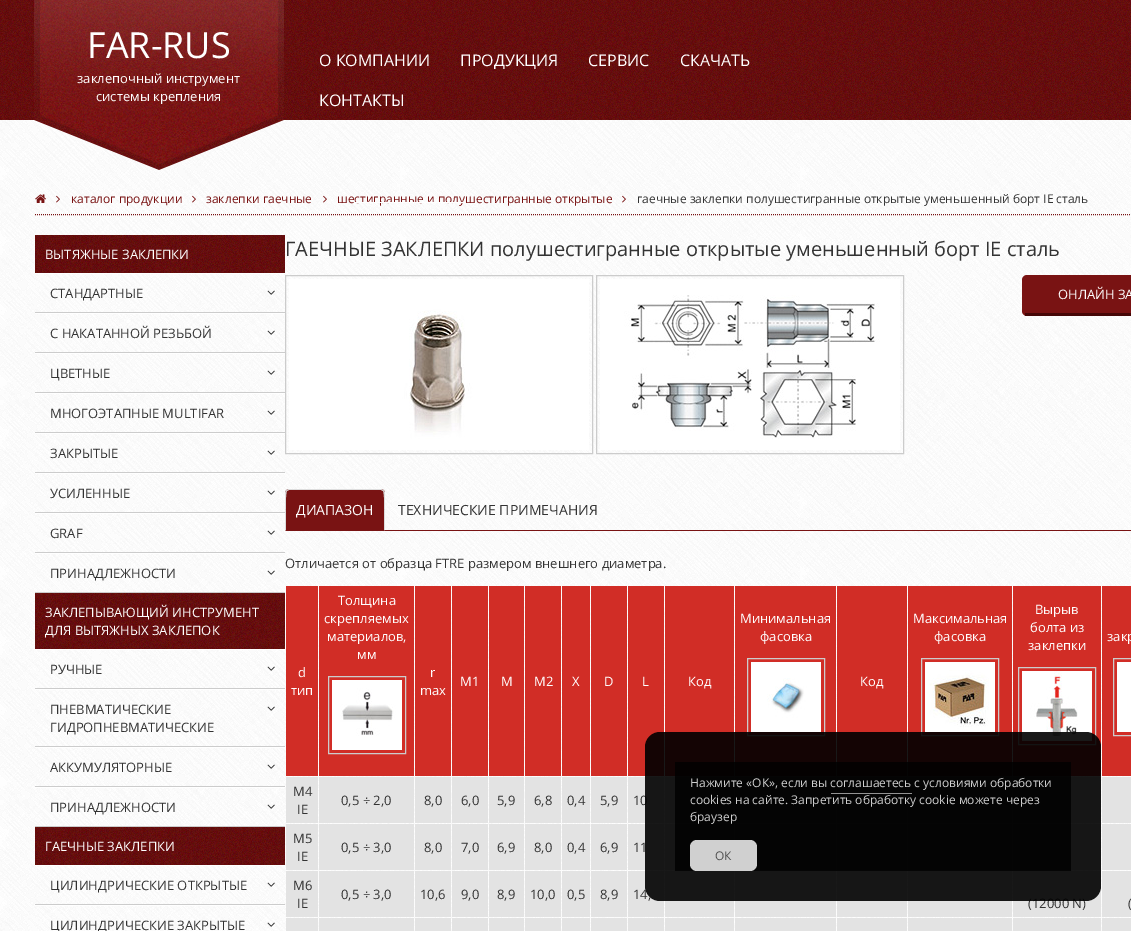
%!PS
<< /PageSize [1131 931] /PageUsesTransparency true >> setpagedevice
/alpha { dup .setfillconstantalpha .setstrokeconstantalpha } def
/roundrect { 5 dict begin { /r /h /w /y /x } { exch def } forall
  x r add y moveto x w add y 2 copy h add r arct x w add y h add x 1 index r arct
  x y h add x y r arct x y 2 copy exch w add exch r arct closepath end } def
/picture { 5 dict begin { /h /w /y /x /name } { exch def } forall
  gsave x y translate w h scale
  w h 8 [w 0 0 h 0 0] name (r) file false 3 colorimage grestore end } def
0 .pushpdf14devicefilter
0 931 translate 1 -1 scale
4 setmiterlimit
1 setgray
0 0 1131 931 rectfill
(img1.rgb) 0 120 1131 811 picture
(img2.rgb) 0 0 1131 120 picture
(img3.rgb) 34 0 250 170 picture
/OpenSans-Regular [36 0 0 -36 0 0] selectfont
87 58 moveto (FAR-RUS) show
/OpenSans-Regular [13 0 0 -13 0 0] selectfont
77 83 moveto (заклепочный инструмент) show
96 101 moveto (системы крепления) show
/OpenSans-Regular [16 0 0 -16 0 0] selectfont
319 66 moveto (О КОМПАНИИ) show
460 66 moveto (ПРОДУКЦИЯ) show
588 66 moveto (СЕРВИС) show
680 66 moveto (СКАЧАТЬ) show
319 106 moveto (КОНТАКТЫ) show
/OpenSans-Regular [12 0 0 -12 0 0] selectfont
0.475 0.075 0.075 setrgbcolor
337 203 moveto (шестигранные и полушестигранные открытые) show
1 setgray
354 202 110 1 rectfill
0.475 0.075 0.075 setrgbcolor
[1 1] 0 setdash
newpath 35 214.5 moveto 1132 214.5 lineto stroke
(img4.rgb) 35 194 11 9 picture
(img5.rgb) 56 195 4 8 picture
71 203 moveto (каталог продукции) show
(img6.rgb) 192 195 4 8 picture
206 203 moveto (заклепки гаечные) show
(img7.rgb) 323 195 4 8 picture
(img8.rgb) 622 195 4 8 picture
0.2 setgray
637 203 moveto (гаечные заклепки полушестигранные открытые уменьшенный борт IE сталь) show
(img9.rgb) 35 235 250 38 picture
/OpenSans-Regular [13 0 0 -13 0 0] selectfont
1 setgray
45 259 moveto (ВЫТЯЖНЫЕ ЗАКЛЕПКИ) show
35 273 250 1 rectfill
0.8 setgray
35 312 250 1 rectfill
0.2 setgray
50 298 moveto (СТАНДАРТНЫЕ) show
(img10.rgb) 267 290 8 5 picture
1 setgray
35 313 250 1 rectfill
0.8 setgray
35 352 250 1 rectfill
0.2 setgray
50 338 moveto (С НАКАТАННОЙ РЕЗЬБОЙ) show
(img11.rgb) 267 330 8 5 picture
1 setgray
35 353 250 1 rectfill
0.8 setgray
35 392 250 1 rectfill
0.2 setgray
50 378 moveto (ЦВЕТНЫЕ) show
(img12.rgb) 267 370 8 5 picture
1 setgray
35 393 250 1 rectfill
0.8 setgray
35 432 250 1 rectfill
0.2 setgray
50 418 moveto (МНОГОЭТАПНЫЕ MULTIFAR) show
(img13.rgb) 267 410 8 5 picture
1 setgray
35 433 250 1 rectfill
0.8 setgray
35 472 250 1 rectfill
0.2 setgray
50 458 moveto (ЗАКРЫТЫЕ) show
(img14.rgb) 267 450 8 5 picture
1 setgray
35 473 250 1 rectfill
0.8 setgray
35 512 250 1 rectfill
0.2 setgray
50 498 moveto (УСИЛЕННЫЕ) show
(img15.rgb) 267 490 8 5 picture
1 setgray
35 513 250 1 rectfill
0.8 setgray
35 552 250 1 rectfill
0.2 setgray
50 538 moveto (GRAF) show
(img16.rgb) 267 530 8 5 picture
1 setgray
35 553 250 1 rectfill
0.8 setgray
35 592 250 1 rectfill
0.2 setgray
50 578 moveto (ПРИНАДЛЕЖНОСТИ) show
(img17.rgb) 267 570 8 5 picture
(img18.rgb) 35 593 250 56 picture
1 setgray
45 617 moveto (ЗАКЛЕПЫВАЮЩИЙ ИНСТРУМЕНТ) show
45 635 moveto (ДЛЯ ВЫТЯЖНЫХ ЗАКЛЕПОК) show
35 649 250 1 rectfill
0.8 setgray
35 688 250 1 rectfill
0.2 setgray
50 674 moveto (РУЧНЫЕ) show
(img19.rgb) 267 666 8 5 picture
1 setgray
35 689 250 1 rectfill
0.8 setgray
35 746 250 1 rectfill
0.2 setgray
50 714 moveto (ПНЕВМАТИЧЕСКИЕ) show
(img20.rgb) 267 706 8 5 picture
50 732 moveto (ГИДРОПНЕВМАТИЧЕСКИЕ) show
1 setgray
35 747 250 1 rectfill
0.8 setgray
35 786 250 1 rectfill
0.2 setgray
50 772 moveto (АККУМУЛЯТОРНЫЕ) show
(img21.rgb) 267 764 8 5 picture
1 setgray
35 787 250 1 rectfill
0.8 setgray
35 826 250 1 rectfill
0.2 setgray
50 812 moveto (ПРИНАДЛЕЖНОСТИ) show
(img22.rgb) 267 804 8 5 picture
(img9.rgb) 35 827 250 38 picture
1 setgray
45 851 moveto (ГАЕЧНЫЕ ЗАКЛЕПКИ) show
35 865 250 1 rectfill
0.8 setgray
35 904 250 1 rectfill
0.2 setgray
50 890 moveto (ЦИЛИНДРИЧЕСКИЕ ОТКРЫТЫЕ) show
(img23.rgb) 267 882 8 5 picture
1 setgray
35 905 250 1 rectfill
0.2 setgray
50 930 moveto (ЦИЛИНДРИЧЕСКИЕ ЗАКРЫТЫЕ) show
(img24.rgb) 267 922 8 5 picture
/OpenSans-Regular [20 0 0 -20 0 0] selectfont
285 256 moveto (ГАЕЧНЫЕ ЗАКЛЕПКИ полушестигранные открытые уменьшенный борт IE сталь) show
0.8 setgray
[] 0 setdash
285.5 275.5 307 178 rectstroke
596.5 275.5 307 178 rectstroke
(img25.rgb) 289 279 300 171 picture
(img26.rgb) 600 279 300 171 picture
0.475 0.075 0.075 setrgbcolor
1022 275 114 41 5 roundrect fill
0.275 0.027 0.027 setrgbcolor
1025 313 106 3 rectfill
/OpenSans-Regular [13 0 0 -13 0 0] selectfont
1 setgray
1058 299 moveto (ОНЛАЙН ЗА) show
0.475 0.075 0.075 setrgbcolor
385 530 746 1 rectfill
newpath 289 489 moveto 381 489 lineto 383 489 385 491 385 493 curveto 385 531 lineto 285 531 lineto 285 493 lineto 285 491 287 489 289 489 curveto closepath fill
0.867 setgray
newpath 289 489 moveto 286 490 lineto 287 491 lineto 289 490 lineto 381 490 lineto 383 491 lineto 384 490 lineto 381 489 lineto closepath fill
newpath 385 531 moveto 385 493 lineto 385 492 384 491 384 490 curveto 383 491 lineto 385 493 384 525 384 530 curveto closepath fill
0.475 0.075 0.075 setrgbcolor
newpath 385 531 moveto 384 530 lineto 286 530 lineto 285 531 lineto closepath fill
0.867 setgray
newpath 285 531 moveto 286 530 lineto 286 525 285 493 287 491 curveto 286 490 lineto 285 493 lineto closepath fill
/OpenSans-Regular [14 0 0 -14 0 0] selectfont
1 setgray
296 515 moveto (ДИАПАЗОН) show
0.2 setgray
398 515 moveto (ТЕХНИЧЕСКИЕ ПРИМЕЧАНИЯ) show
/OpenSans-Regular [13 0 0 -13 0 0] selectfont
285 568 moveto (Отличается от образца FTRE размером внешнего диаметра.) show
0.82 0.176 0.149 setrgbcolor
319 586 95 190 rectfill
1 setgray
338 605 moveto (Толщина) show
324 623 moveto (скрепляемых) show
327 641 moveto (материалов,) show
357 659 moveto (мм) show
0.8 setgray
328.5 676.5 77 77 rectstroke
(img27.rgb) 332 680 70 70 picture
0.82 0.176 0.149 setrgbcolor
735 586 101 190 rectfill
1 setgray
740 623 moveto (Минимальная) show
760 641 moveto (фасовка) show
0.8 setgray
747.5 658.5 77 77 rectstroke
(img28.rgb) 751 662 70 70 picture
0.82 0.176 0.149 setrgbcolor
908 586 104 190 rectfill
1 setgray
913 623 moveto (Максимальная) show
934 641 moveto (фасовка) show
0.8 setgray
921.5 658.5 77 77 rectstroke
(img29.rgb) 925 662 70 70 picture
0.82 0.176 0.149 setrgbcolor
1013 586 88 190 rectfill
1 setgray
1035 614 moveto (Вырыв) show
1030 632 moveto (болта из) show
1028 650 moveto (заклепки) show
0.8 setgray
1018.5 667.5 77 77 rectstroke
(img30.rgb) 1022 671 70 70 picture
0.82 0.176 0.149 setrgbcolor
1102 586 29 190 rectfill
1 setgray
1107 641 moveto (закр) show
0.8 setgray
1113.5 658.5 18 77 rectstroke
1 setgray
1117 662 14 70 rectfill
0.82 0.176 0.149 setrgbcolor
286 586 32 190 rectfill
1 setgray
298 677 moveto (d) show
291 695 moveto (тип) show
0.82 0.176 0.149 setrgbcolor
415 586 36 190 rectfill
1 setgray
430 677 moveto (r) show
420 695 moveto (max) show
0.82 0.176 0.149 setrgbcolor
452 586 36 190 rectfill
1 setgray
460 686 moveto (M1) show
0.82 0.176 0.149 setrgbcolor
489 586 35 190 rectfill
1 setgray
501 686 moveto (M) show
0.82 0.176 0.149 setrgbcolor
525 586 36 190 rectfill
1 setgray
534 686 moveto (M2) show
0.82 0.176 0.149 setrgbcolor
562 586 28 190 rectfill
1 setgray
572 686 moveto (X) show
0.82 0.176 0.149 setrgbcolor
591 586 36 190 rectfill
1 setgray
604 686 moveto (D) show
0.82 0.176 0.149 setrgbcolor
628 586 36 190 rectfill
1 setgray
642 686 moveto (L) show
0.82 0.176 0.149 setrgbcolor
665 586 69 190 rectfill
1 setgray
688 686 moveto (Код) show
0.82 0.176 0.149 setrgbcolor
837 586 70 190 rectfill
1 setgray
860 686 moveto (Код) show
0.89 setgray
286 777 32 46 rectfill
0.2 setgray
293 796 moveto (M4) show
297 814 moveto (IE) show
0.89 setgray
319 777 95 46 rectfill
0.2 setgray
341 805 moveto (0,5 ÷ 2,0) show
0.89 setgray
415 777 36 46 rectfill
0.2 setgray
424 805 moveto (8,0) show
0.89 setgray
452 777 36 46 rectfill
0.2 setgray
461 805 moveto (6,0) show
0.89 setgray
489 777 35 46 rectfill
0.2 setgray
497 805 moveto (5,9) show
0.89 setgray
525 777 36 46 rectfill
0.2 setgray
534 805 moveto (6,8) show
0.89 setgray
562 777 28 46 rectfill
0.2 setgray
567 805 moveto (0,4) show
0.89 setgray
591 777 36 46 rectfill
0.2 setgray
600 805 moveto (5,9) show
0.89 setgray
628 777 36 46 rectfill
0.2 setgray
633 805 moveto (10) show
0.89 setgray
665 777 69 46 rectfill
735 777 101 46 rectfill
837 777 70 46 rectfill
908 777 104 46 rectfill
1013 777 88 46 rectfill
1102 777 29 46 rectfill
286 824 32 46 rectfill
0.2 setgray
293 843 moveto (M5) show
297 861 moveto (IE) show
0.89 setgray
319 824 95 46 rectfill
0.2 setgray
341 852 moveto (0,5 ÷ 3,0) show
0.89 setgray
415 824 36 46 rectfill
0.2 setgray
424 852 moveto (8,0) show
0.89 setgray
452 824 36 46 rectfill
0.2 setgray
461 852 moveto (7,0) show
0.89 setgray
489 824 35 46 rectfill
0.2 setgray
497 852 moveto (6,9) show
0.89 setgray
525 824 36 46 rectfill
0.2 setgray
534 852 moveto (8,0) show
0.89 setgray
562 824 28 46 rectfill
0.2 setgray
567 852 moveto (0,4) show
0.89 setgray
591 824 36 46 rectfill
0.2 setgray
600 852 moveto (6,9) show
0.89 setgray
628 824 36 46 rectfill
0.2 setgray
633 852 moveto (11) show
0.89 setgray
665 824 69 46 rectfill
735 824 101 46 rectfill
837 824 70 46 rectfill
908 824 104 46 rectfill
1013 824 88 46 rectfill
1102 824 29 46 rectfill
286 871 32 46 rectfill
0.2 setgray
293 890 moveto (M6) show
297 908 moveto (IE) show
0.89 setgray
319 871 95 46 rectfill
0.2 setgray
341 899 moveto (0,5 ÷ 3,0) show
0.89 setgray
415 871 36 46 rectfill
0.2 setgray
420 899 moveto (10,6) show
0.89 setgray
452 871 36 46 rectfill
0.2 setgray
461 899 moveto (9,0) show
0.89 setgray
489 871 35 46 rectfill
0.2 setgray
497 899 moveto (8,9) show
0.89 setgray
525 871 36 46 rectfill
0.2 setgray
530 899 moveto (10,0) show
0.89 setgray
562 871 28 46 rectfill
0.2 setgray
567 899 moveto (0,5) show
0.89 setgray
591 871 36 46 rectfill
0.2 setgray
600 899 moveto (8,9) show
0.89 setgray
628 871 36 46 rectfill
0.2 setgray
633 899 moveto (14,) show
0.89 setgray
665 871 69 46 rectfill
735 871 101 46 rectfill
837 871 70 46 rectfill
908 871 104 46 rectfill
1013 871 88 46 rectfill
0.2 setgray
1028 908 moveto (\(12000 N\)) show
0.89 setgray
1102 871 29 46 rectfill
0.2 setgray
1128 908 moveto (\() show
0.89 setgray
286 918 32 13 rectfill
319 918 95 13 rectfill
415 918 36 13 rectfill
452 918 36 13 rectfill
489 918 35 13 rectfill
525 918 36 13 rectfill
562 918 28 13 rectfill
591 918 36 13 rectfill
628 918 36 13 rectfill
665 918 69 13 rectfill
735 918 101 13 rectfill
837 918 70 13 rectfill
908 918 104 13 rectfill
1013 918 88 13 rectfill
1102 918 29 13 rectfill
0.9 alpha
0 setgray
645 732 456 169 15 roundrect fill
0.81 alpha
675 762 396 109 rectfill
/OpenSans-Regular [12 0 0 -12 0 0] selectfont
1 alpha
0.812 setgray
690 787 moveto (Нажмите «ОК», если вы соглашаетесь с условиями обработки) show
0.573 setgray
831 793 81 1 rectfill
0.812 setgray
690 804 moveto (cookies на сайте. Запретить обработку cookie можете через) show
690 821 moveto (браузер) show
0.81 alpha
1 setgray
690 840 67 31 7 roundrect fill
1 alpha
0.318 setgray
715 860 moveto (ОК) show
.poppdf14devicefilter showpage
